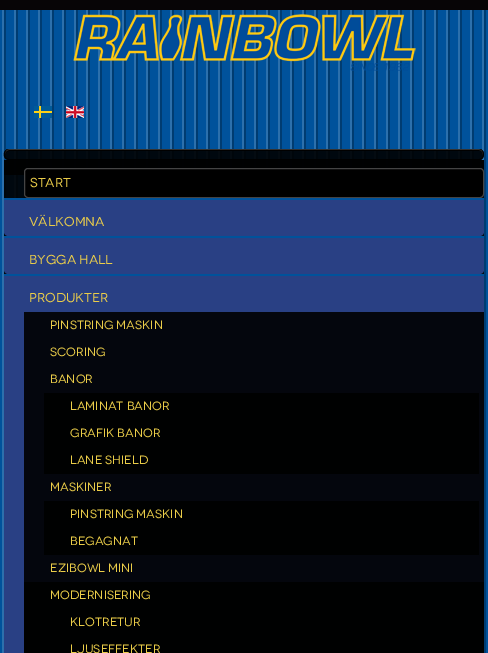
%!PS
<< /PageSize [488 653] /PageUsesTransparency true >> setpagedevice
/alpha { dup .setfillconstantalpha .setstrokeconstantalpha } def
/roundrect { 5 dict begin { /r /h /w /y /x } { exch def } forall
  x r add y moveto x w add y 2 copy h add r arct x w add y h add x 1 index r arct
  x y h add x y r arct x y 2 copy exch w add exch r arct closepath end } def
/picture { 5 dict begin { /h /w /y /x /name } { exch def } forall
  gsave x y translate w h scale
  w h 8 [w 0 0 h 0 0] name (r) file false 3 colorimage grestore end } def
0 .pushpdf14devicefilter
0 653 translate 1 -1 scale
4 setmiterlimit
1 setgray
0 0 488 653 rectfill
(img1.rgb) 0 10 488 643 picture
0.027 0.02 0.024 setrgbcolor
0 0 488 10 rectfill
(img2.rgb) 73 14 343 57 picture
(img3.rgb) 34 106 18 12 picture
(img4.rgb) 66 106 18 12 picture
0.9 alpha
0 setgray
4 149 480 11 5 roundrect fill
1 alpha
newpath 9 151 moveto 480 151 lineto 482 152 lineto 483 155 lineto 482 151 lineto 480 149 lineto 9 149 lineto 6 149 5 152 5 155 curveto 5 153 7 151 9 151 curveto closepath fill
0.2 setgray
newpath 9 150 moveto 479 150 lineto 482 150 483 153 483 155 curveto 483 152 482 149 479 149 curveto 9 149 lineto 6 149 5 152 5 154 curveto 5 152 7 150 9 150 curveto closepath fill
0 setgray
newpath 9 149 moveto 479 149 lineto 481 149 482 150 483 151 curveto 485 155 483 160 479 160 curveto 9 160 lineto 2 160 2 149 9 149 curveto closepath 9 149 moveto 479 149 lineto 482 149 483 152 483 154 curveto 483 157 482 159 479 159 curveto 9 159 lineto 3 159 4 149 9 149 curveto closepath eofill
0.9 alpha
4 160 480 114 rectfill
4 160 480 15 rectfill
1 alpha
newpath 24 194 moveto 24 197 25 199 28 199 curveto 480 199 lineto 482 198 lineto 483 197 lineto 484 194 lineto 484 196 482 198 480 198 curveto 28 198 lineto 26 198 24 196 24 194 curveto closepath fill
24.5 168.5 459 29 3.5 roundrect gsave fill grestore
0.267 setgray
stroke
/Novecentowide-Regular [13 0 0 -13 0 0] selectfont
0.922 0.804 0.286 setrgbcolor
30 187 moveto (START) show
0.161 0.251 0.518 setrgbcolor
newpath 4 198 moveto 484 198 lineto 484 232 lineto 484 234 482 236 480 236 curveto 8 236 lineto 6 236 4 234 4 232 curveto closepath fill
0 0.322 0.608 setrgbcolor
4 198 480 2 rectfill
0.922 0.804 0.286 setrgbcolor
29 226 moveto (VÄLKOMNA) show
0.161 0.251 0.518 setrgbcolor
newpath 4 236 moveto 484 236 lineto 484 270 lineto 484 272 482 274 480 274 curveto 8 274 lineto 6 274 4 272 4 270 curveto closepath fill
0 0.322 0.608 setrgbcolor
4 236 480 2 rectfill
0.922 0.804 0.286 setrgbcolor
29 264 moveto (BYGGA HALL) show
0.161 0.251 0.518 setrgbcolor
4 276 480 377 rectfill
0 0.322 0.608 setrgbcolor
4 274 480 2 rectfill
0.922 0.804 0.286 setrgbcolor
29 302 moveto (PRODUKTER) show
0.016 0.024 0.051 setrgbcolor
24 312 460 270 rectfill
/Novecentowide-Regular [12 0 0 -12 0 0] selectfont
0.922 0.804 0.286 setrgbcolor
50 329 moveto (PINSTRING MASKIN) show
50 356 moveto (SCORING) show
50 383 moveto (BANOR) show
0 0.004 0.004 setrgbcolor
44 393 435 81 rectfill
0.922 0.804 0.286 setrgbcolor
70 410 moveto (LAMINAT BANOR) show
70 437 moveto (GRAFIK BANOR) show
70 464 moveto (LANE SHIELD) show
50 491 moveto (MASKINER) show
0 0.004 0.004 setrgbcolor
44 501 435 54 rectfill
0.922 0.804 0.286 setrgbcolor
70 518 moveto (PINSTRING MASKIN) show
70 545 moveto (BEGAGNAT) show
50 572 moveto (EZIBOWL MINI) show
0 0.004 0.004 setrgbcolor
24 582 460 71 rectfill
0.922 0.804 0.286 setrgbcolor
50 599 moveto (MODERNISERING) show
70 626 moveto (KLOTRETUR) show
70 653 moveto (LJUSEFFEKTER) show
.poppdf14devicefilter showpage
